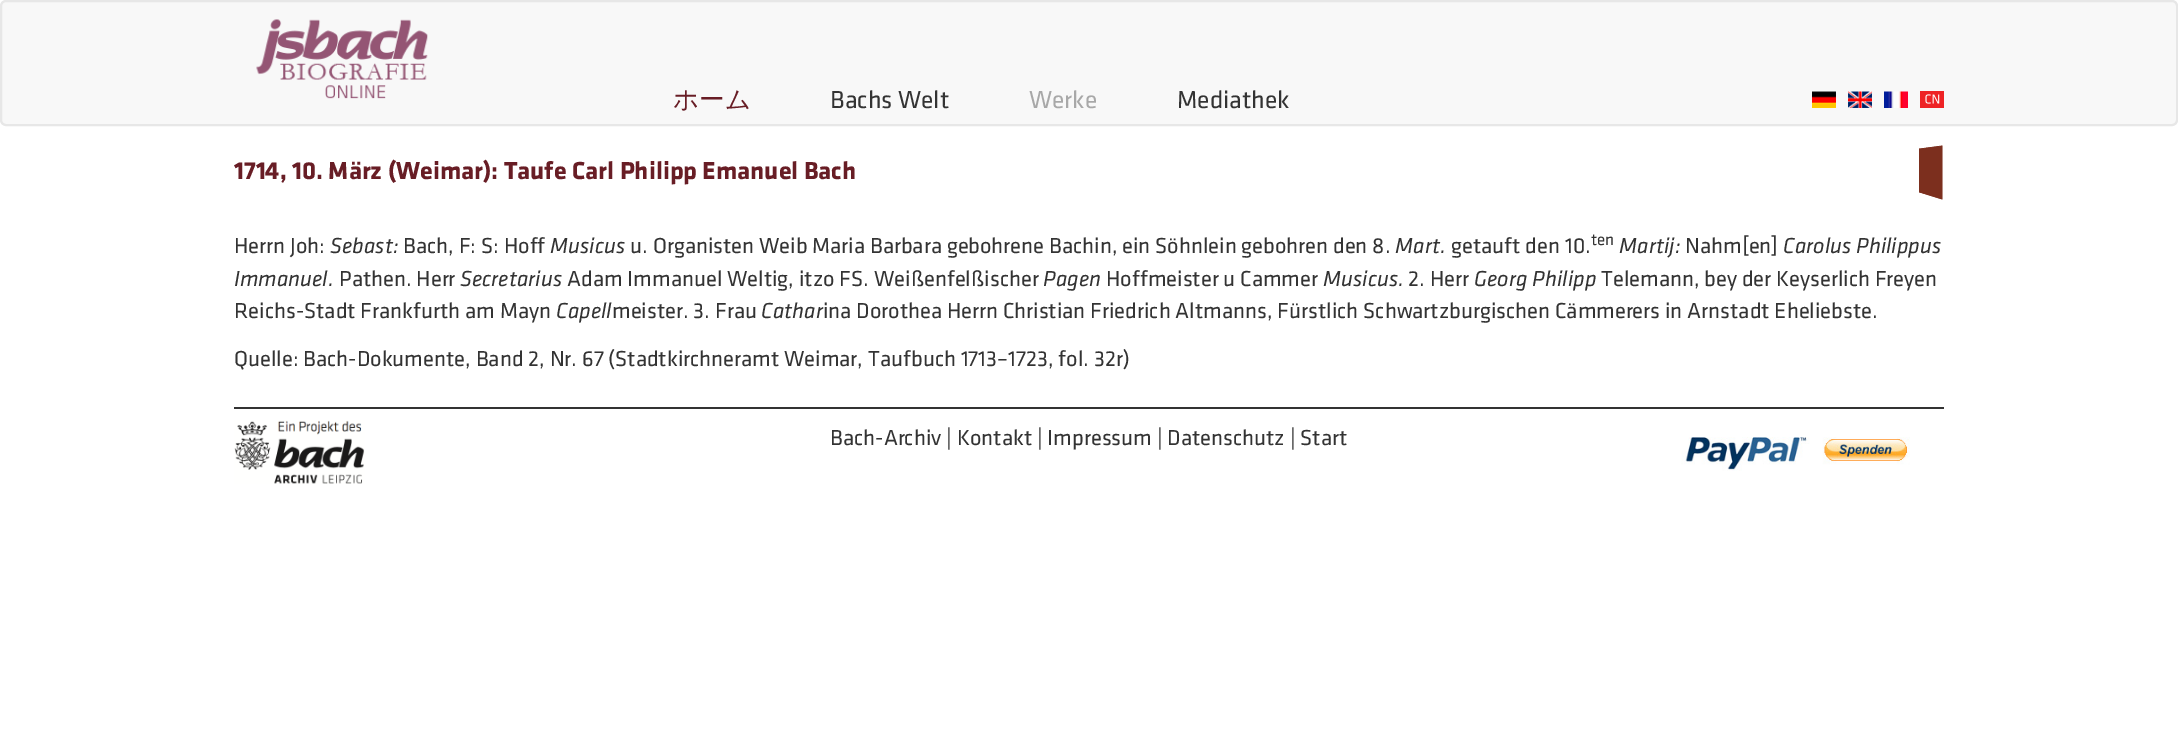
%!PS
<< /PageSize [2178 751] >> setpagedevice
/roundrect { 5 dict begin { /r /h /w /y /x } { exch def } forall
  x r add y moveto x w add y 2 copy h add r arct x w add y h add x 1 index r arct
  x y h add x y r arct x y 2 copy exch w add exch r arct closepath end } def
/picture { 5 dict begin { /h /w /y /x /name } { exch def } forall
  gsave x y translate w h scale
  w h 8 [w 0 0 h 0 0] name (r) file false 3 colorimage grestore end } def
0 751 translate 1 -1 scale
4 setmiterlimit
1 setgray
0 0 2178 751 rectfill
0.973 setgray
1 1 2176 124 5 roundrect gsave fill grestore
0.906 setgray
2 setlinewidth
stroke
(img1.rgb) 256 19 172 80 picture
/WenQuanYiZenHei-Medium [25.5 0 0 -25.5 0 0] selectfont
0.408 0.114 0.145 setrgbcolor
673 108 moveto (ホーム) show
/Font-Regular [25.5 0 0 -25.5 0 0] selectfont
0.2 setgray
830 108 moveto (Bachs Welt) show
0.659 setgray
1029 108 moveto (Werke) show
0.2 setgray
1177 108 moveto (Mediathek) show
(img2.rgb) 1812 91 24 17 picture
(img3.rgb) 1848 91 24 17 picture
(img4.rgb) 1884 91 24 17 picture
0.933 0.137 0.145 setrgbcolor
1920 91 24 17 rectfill
(img5.rgb) 1925 94 15 10 picture
/Font-Bold [25.5 0 0 -25.5 0 0] selectfont
0.408 0.114 0.145 setrgbcolor
234 179 moveto (1714, 10. März \(Weimar\): Taufe Carl Philipp Emanuel Bach) show
0.486 0.184 0.118 setrgbcolor
newpath 1942 146 moveto 1919 149 lineto 1919 192 lineto 1942 199 lineto closepath fill
0.7 setlinewidth
newpath 1942 146 moveto 1919.5 149 lineto 1919.5 192 lineto 1942 199 lineto closepath stroke
/Font-Regular [22.5 0 0 -22.5 0 0] selectfont
0.2 setgray
234 253 moveto (Herrn Joh:) show
/Font-Italic [22.5 0 0 -22.5 0 0] selectfont
330 253 moveto (Sebast:) show
/Font-Regular [22.5 0 0 -22.5 0 0] selectfont
403 253 moveto (Bach, F: S: Hoff) show
/Font-Italic [22.5 0 0 -22.5 0 0] selectfont
550 253 moveto (Musicus) show
/Font-Regular [22.5 0 0 -22.5 0 0] selectfont
630 253 moveto (u. Organisten Weib Maria Barbara gebohrene Bachin, ein Söhnlein gebohren den 8.) show
/Font-Italic [22.5 0 0 -22.5 0 0] selectfont
1395 253 moveto (Mart.) show
/Font-Regular [22.5 0 0 -22.5 0 0] selectfont
1451 253 moveto (getauft den 10.) show
/Font-Regular [17 0 0 -17 0 0] selectfont
1591 245 moveto (ten) show
/Font-Italic [22.5 0 0 -22.5 0 0] selectfont
1619 253 moveto (Martij:) show
/Font-Regular [22.5 0 0 -22.5 0 0] selectfont
1685 253 moveto (Nahm[en]) show
/Font-Italic [22.5 0 0 -22.5 0 0] selectfont
1783 253 moveto (Carolus Philippus) show
234 286 moveto (Immanuel.) show
/Font-Regular [22.5 0 0 -22.5 0 0] selectfont
339 286 moveto (Pathen. Herr) show
/Font-Italic [22.5 0 0 -22.5 0 0] selectfont
460 286 moveto (Secretarius) show
/Font-Regular [22.5 0 0 -22.5 0 0] selectfont
567 286 moveto (Adam Immanuel Weltig, itzo FS. Weißenfelßischer) show
/Font-Italic [22.5 0 0 -22.5 0 0] selectfont
1043 286 moveto (Pagen) show
/Font-Regular [22.5 0 0 -22.5 0 0] selectfont
1106 286 moveto (Hoffmeister u Cammer) show
/Font-Italic [22.5 0 0 -22.5 0 0] selectfont
1323 286 moveto (Musicus.) show
/Font-Regular [22.5 0 0 -22.5 0 0] selectfont
1408 286 moveto (2. Herr) show
/Font-Italic [22.5 0 0 -22.5 0 0] selectfont
1474 286 moveto (Georg Philipp) show
/Font-Regular [22.5 0 0 -22.5 0 0] selectfont
1601 286 moveto (Telemann, bey der Keyserlich Freyen) show
234 318 moveto (Reichs-Stadt Frankfurth am Mayn) show
/Font-Italic [22.5 0 0 -22.5 0 0] selectfont
556 318 moveto (Capell) show
/Font-Regular [22.5 0 0 -22.5 0 0] selectfont
612 318 moveto (meister. 3. Frau) show
/Font-Italic [22.5 0 0 -22.5 0 0] selectfont
761 318 moveto (Cathar) show
/Font-Regular [22.5 0 0 -22.5 0 0] selectfont
823 318 moveto (ina Dorothea Herrn Christian Friedrich Altmanns, Fürstlich Schwartzburgischen Cämmerers in Arnstadt Eheliebste.) show
234 366 moveto (Quelle: Bach-Dokumente, Band 2, Nr. 67 \(Stadtkirchneramt Weimar, Taufbuch 1713–1723, fol. 32r\)) show
234 407 1710 2 rectfill
(img6.rgb) 234 420 131 64 picture
830 445 moveto (Bach-Archiv | Kontakt | Impressum | Datenschutz | Start) show
(img7.rgb) 1681 437 229 34 picture
showpage
